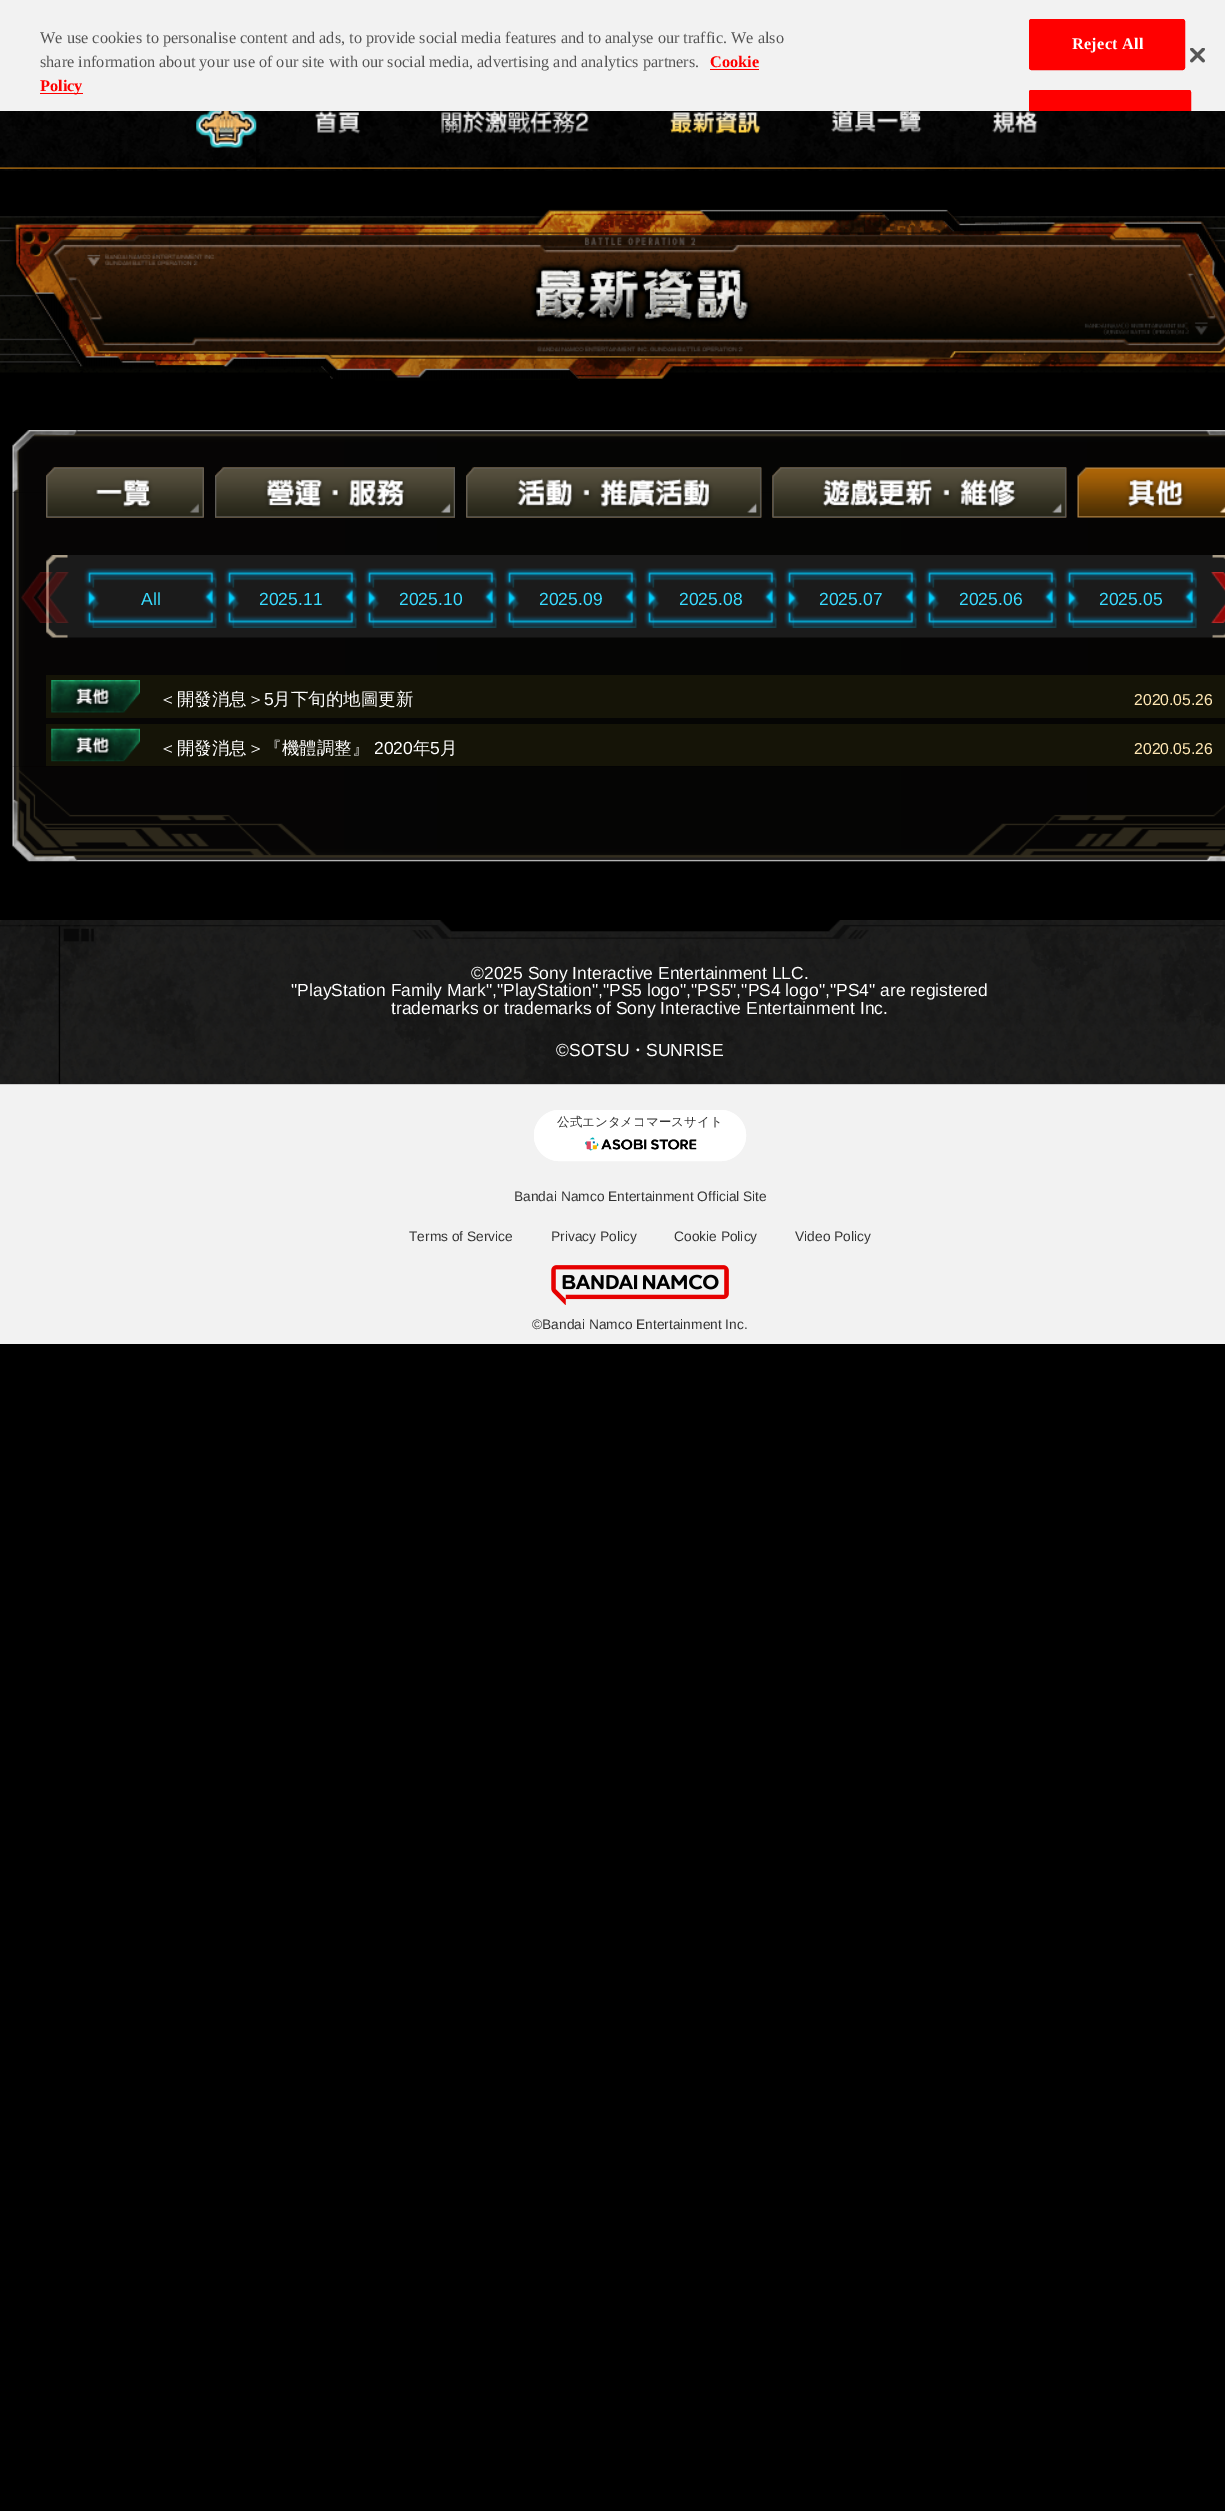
%!PS
<< /PageSize [1225 2511] /PageUsesTransparency true >> setpagedevice
/alpha { dup .setfillconstantalpha .setstrokeconstantalpha } def
/roundrect { 5 dict begin { /r /h /w /y /x } { exch def } forall
  x r add y moveto x w add y 2 copy h add r arct x w add y h add x 1 index r arct
  x y h add x y r arct x y 2 copy exch w add exch r arct closepath end } def
/shadow { 12 dict begin { /a /b /q /h /w /y /x } { exch def } forall gsave /was 0 def
  9 -2 -9 { dup b mul 4 div /e exch def 1 sub .425 mul 2.718 exch exp 1 add a .99 .min exch div /now exch def
    1 1 now sub 1 was sub div sub alpha /was now def
    w h .min e 2 mul add 0 gt { x e sub y e sub w e 2 mul add h e 2 mul add
      q e add b .6 mul add w h .min 2 div e add .min 0 .max roundrect fill } if } for grestore end } def
/picture { 5 dict begin { /h /w /y /x /name } { exch def } forall
  gsave x y translate w h scale
  w h 8 [w 0 0 h 0 0] name (r) file false 3 colorimage grestore end } def
0 .pushpdf14devicefilter
0 2511 translate 1 -1 scale
4 setmiterlimit
0 setgray
0 0 1225 2511 rectfill
(img2.rgb) 256 111 384 60 picture
(img3.rgb) 0 111 256 60 picture
(img4.rgb) 196 111 61 37 picture
(img5.rgb) 315 111 46 23 picture
(img6.rgb) 441 111 148 23 picture
(img10.rgb) 640 111 585 60 picture
(img7.rgb) 670 111 91 23 picture
(img8.rgb) 831 111 91 22 picture
(img9.rgb) 992 111 46 23 picture
0 0 1225 111 0 11 0.2 shadow
0.949 setgray
0 0 1225 111 rectfill
/LiberationSerif-Regular [16.25 0 0 -16.25 0 0] selectfont
0.333 setgray
40 43 moveto (We use cookies to personalise content and ads, to provide social media features and to analyse our traffic. We also) show
40 67 moveto (share information about your use of our site with our social media, advertising and analytics partners.) show
/LiberationSerif-Bold [16.25 0 0 -16.25 0 0] selectfont
1 0 0 setrgbcolor
710 67 moveto (Cookie) show
710 69 49 1 rectfill
40 93 43 1 rectfill
40 91 moveto (Policy) show
1029.5 19.5 155 50 2 roundrect gsave fill grestore
stroke
1 setgray
1072 49 moveto 0.25 0 (Reject All) ashow
1 0 0 setrgbcolor
newpath 1031.5 90 moveto 1188.5 90 lineto 1190 90 1191 91 1191 92.5 curveto 1191 111 lineto 1029 111 lineto 1029 92.5 lineto 1029 91 1030 90 1031.5 90 curveto closepath fill
gsave
0 0 1225 111 rectclip
1029.5 90.5 161 52 2 roundrect stroke
grestore
(img1.rgb) 1190 48 15 15 picture
(img11.rgb) 0 216 1225 157 picture
(img12.rgb) 9 209 1216 172 picture
(img14.rgb) 12 492 1213 275 picture
(img13.rgb) 12 430 1213 63 picture
(img15.rgb) 46 467 158 51 picture
(img16.rgb) 46 467 158 51 picture
(img17.rgb) 215 467 240 51 picture
(img18.rgb) 215 467 240 51 picture
(img19.rgb) 466 467 296 51 picture
(img20.rgb) 466 467 296 51 picture
(img21.rgb) 772 467 295 51 picture
(img22.rgb) 772 467 295 51 picture
(img23.rgb) 1077 467 148 51 picture
(img24.rgb) 46 555 1179 83 picture
(img25.rgb) 21 572 48 51 picture
(img26.rgb) 84 568 133 60 picture
/LiberationSans-Regular [17.5 0 0 -17.5 0 0] selectfont
0.22 0.863 1 setrgbcolor
141 605 moveto (All) show
(img26.rgb) 224 568 133 60 picture
259 605 moveto (2025.11) show
(img26.rgb) 364 568 133 60 picture
399 605 moveto (2025.10) show
(img26.rgb) 504 568 133 60 picture
539 605 moveto (2025.09) show
(img26.rgb) 644 568 133 60 picture
679 605 moveto (2025.08) show
(img26.rgb) 784 568 133 60 picture
819 605 moveto (2025.07) show
(img26.rgb) 924 568 133 60 picture
959 605 moveto (2025.06) show
(img27.rgb) 1064 568 133 60 picture
1099 605 moveto (2025.05) show
(img28.rgb) 1211 572 14 52 picture
0.082 0.078 0.027 setrgbcolor
46 675 1179 43 rectfill
(img29.rgb) 51 680 89 33 picture
/WenQuanYiZenHei-Medium [17.5 0 0 -17.5 0 0] selectfont
1 setgray
159 705 moveto (＜開發消息＞) show
/LiberationSans-Regular [17.5 0 0 -17.5 0 0] selectfont
264 705 moveto (5) show
/WenQuanYiZenHei-Medium [17.5 0 0 -17.5 0 0] selectfont
273 705 moveto (月下旬的地圖更新) show
/LiberationSans-Regular [15.75 0 0 -15.75 0 0] selectfont
1 0.906 0.702 setrgbcolor
1134 705 moveto (2020.05.26) show
0.082 0.078 0.027 setrgbcolor
46 724 1179 42 rectfill
(img30.rgb) 51 728 89 34 picture
/WenQuanYiZenHei-Medium [17.5 0 0 -17.5 0 0] selectfont
1 setgray
159 754 moveto (＜開發消息＞『機體調整』) show
/LiberationSans-Regular [17.5 0 0 -17.5 0 0] selectfont
374 754 moveto (2020) show
/WenQuanYiZenHei-Medium [17.5 0 0 -17.5 0 0] selectfont
413 754 moveto (年) show
/LiberationSans-Regular [17.5 0 0 -17.5 0 0] selectfont
430 754 moveto (5) show
/WenQuanYiZenHei-Medium [17.5 0 0 -17.5 0 0] selectfont
440 754 moveto (月) show
/LiberationSans-Regular [15.75 0 0 -15.75 0 0] selectfont
1 0.906 0.702 setrgbcolor
1134 754 moveto (2020.05.26) show
(img31.rgb) 12 766 1213 96 picture
(img32.rgb) 0 920 1225 164 picture
/LiberationSans-Regular [17.5 0 0 -17.5 0 0] selectfont
1 setgray
471 979 moveto (©2025 Sony Interactive Entertainment LLC.) show
291 996 moveto ("PlayStation Family Mark","PlayStation","PS5 logo","PS5","PS4 logo","PS4" are registered) show
391 1014 moveto (trademarks or trademarks of Sony Interactive Entertainment Inc.) show
556 1056 moveto (©SOTSU) show
/WenQuanYiZenHei-Medium [17.5 0 0 -17.5 0 0] selectfont
629 1056 moveto (・) show
/LiberationSans-Regular [17.5 0 0 -17.5 0 0] selectfont
646 1056 moveto (SUNRISE) show
0.8 setgray
0 1084 1225 1 rectfill
0.949 setgray
0 1085 1225 259 rectfill
1 setgray
534 1110 212 51 25.5 roundrect fill
(img33.rgb) 585 1137 112 14 picture
534.5 1110.5 211 50 25 roundrect stroke
/WenQuanYiZenHei-Medium [12.5 0 0 -12.5 0 0] selectfont
0.2 setgray
557 1126 moveto (公式エンタメコマースサイト) show
/LiberationSans-Regular [13.75 0 0 -13.75 0 0] selectfont
514 1201 moveto (Bandai Namco Entertainment Official Site) show
409 1241 moveto (Terms of Service) show
551 1241 moveto (Privacy Policy) show
674 1241 moveto (Cookie Policy) show
795 1241 moveto (Video Policy) show
(img34.rgb) 551 1265 178 40 picture
532 1329 moveto (©Bandai Namco Entertainment Inc.) show
.poppdf14devicefilter showpage
